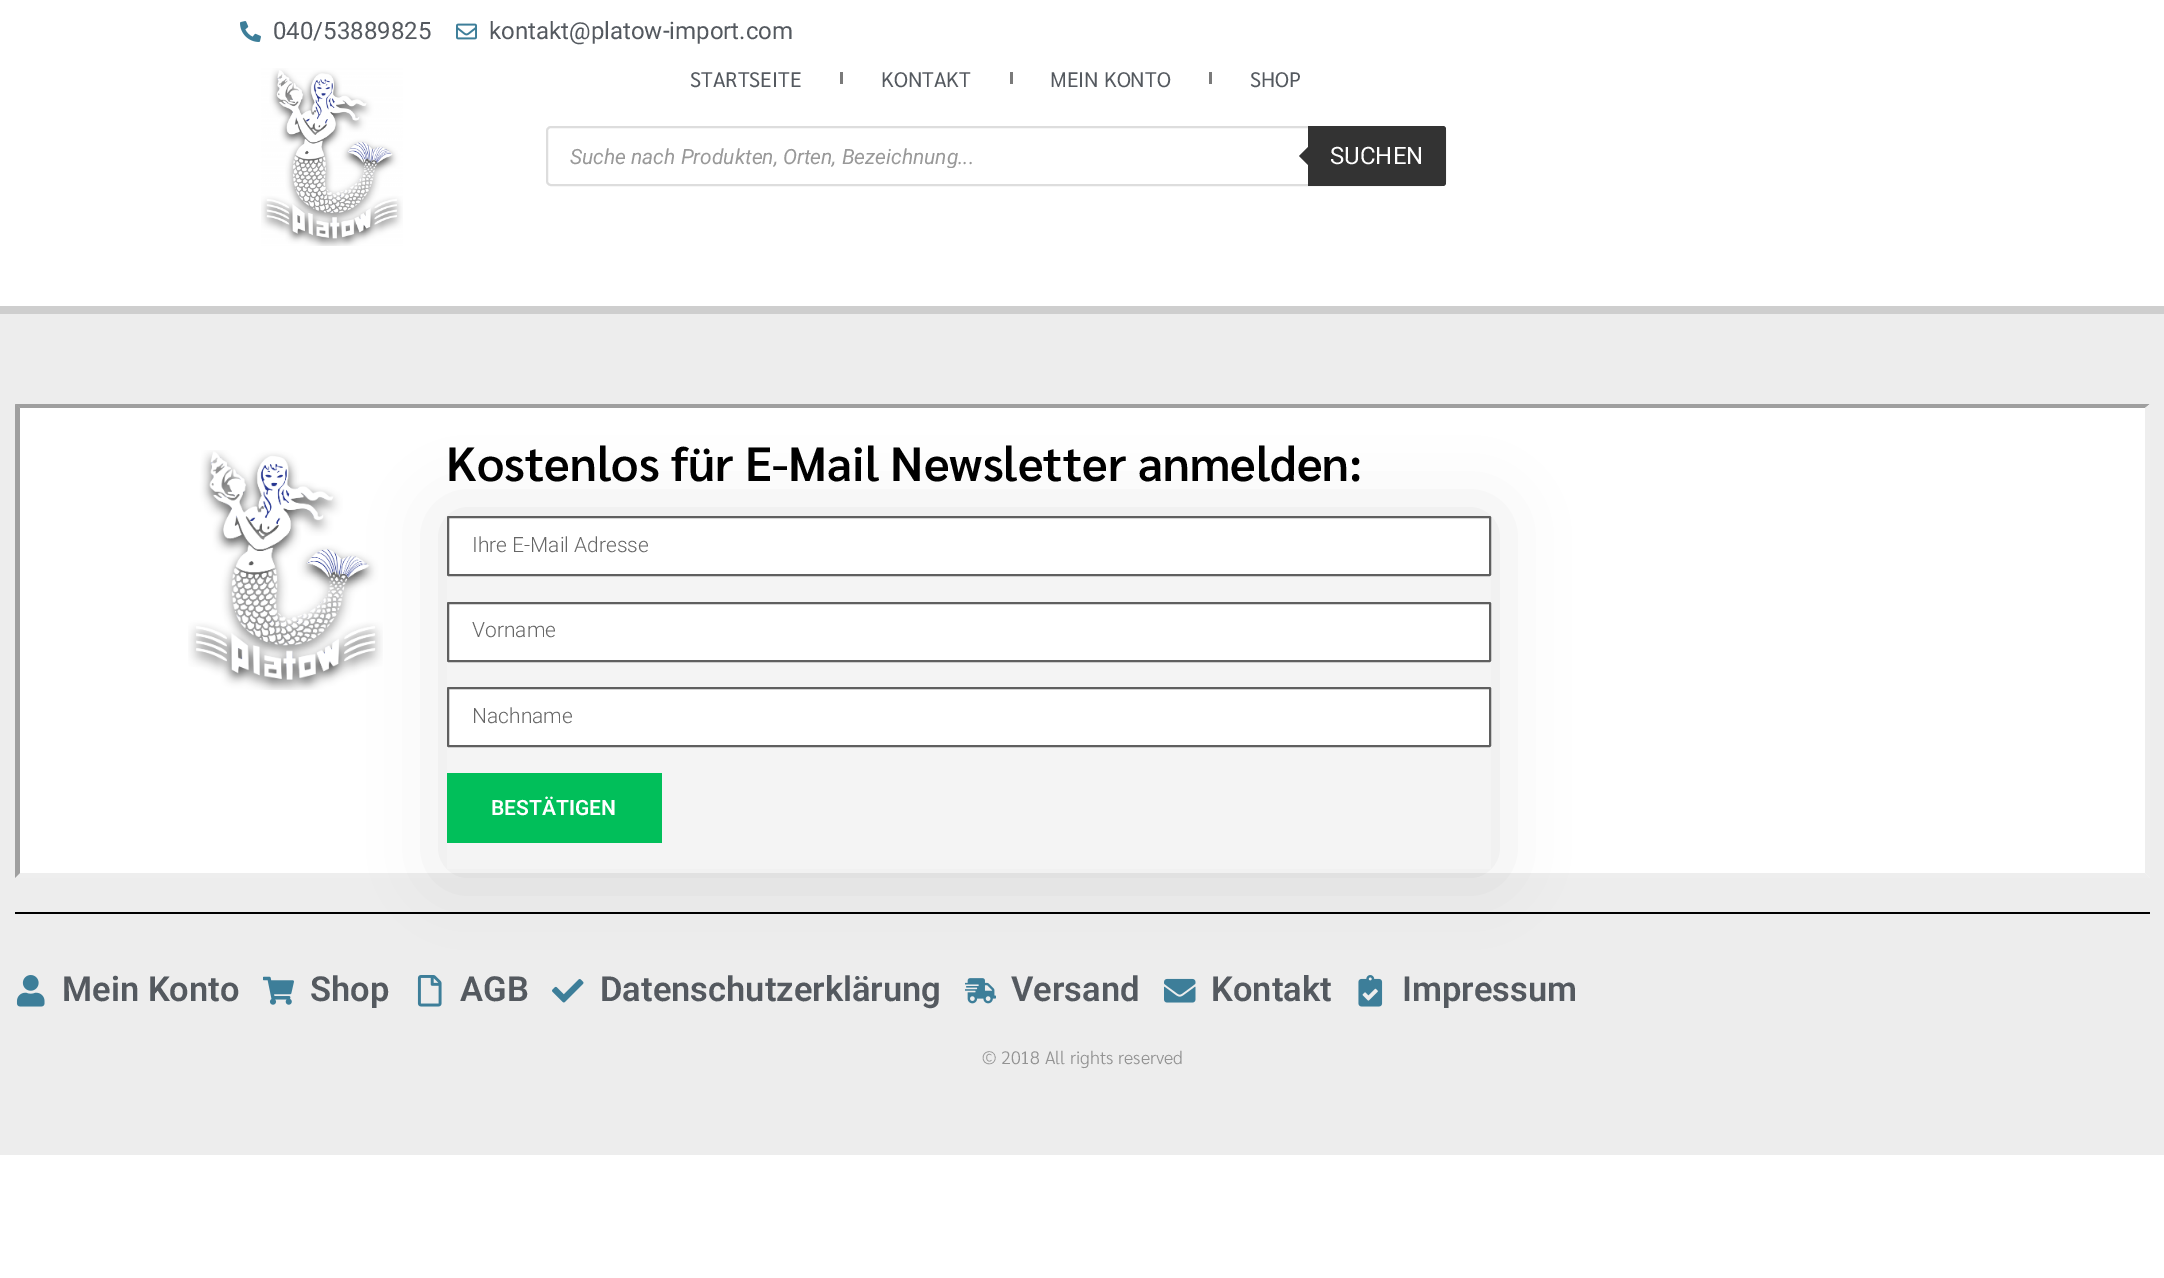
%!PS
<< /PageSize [2164 1278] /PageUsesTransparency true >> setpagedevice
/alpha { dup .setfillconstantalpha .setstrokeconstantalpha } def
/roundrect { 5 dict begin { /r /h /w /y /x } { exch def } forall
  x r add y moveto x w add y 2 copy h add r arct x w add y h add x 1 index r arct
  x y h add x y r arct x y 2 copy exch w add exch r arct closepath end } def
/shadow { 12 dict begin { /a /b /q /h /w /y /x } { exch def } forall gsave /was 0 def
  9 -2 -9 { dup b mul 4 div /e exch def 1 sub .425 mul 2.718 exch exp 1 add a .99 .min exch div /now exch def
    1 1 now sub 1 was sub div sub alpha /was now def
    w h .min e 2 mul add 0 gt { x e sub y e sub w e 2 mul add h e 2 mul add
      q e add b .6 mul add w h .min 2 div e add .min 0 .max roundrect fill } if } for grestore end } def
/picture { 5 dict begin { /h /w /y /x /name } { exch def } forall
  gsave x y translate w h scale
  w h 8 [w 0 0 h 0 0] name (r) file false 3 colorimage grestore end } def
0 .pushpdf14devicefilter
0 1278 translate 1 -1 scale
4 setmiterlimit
1 setgray
0 0 2164 1278 rectfill
(img1.rgb) 240 21 21 21 picture
/Roboto-Regular [24 0 0 -24 0 0] selectfont
0.329 0.349 0.373 setrgbcolor
273 39 moveto (040/53889825) show
(img2.rgb) 456 23 21 17 picture
489 39 moveto (kontakt@platow-import.com) show
(img3.rgb) 261 68 142 178 picture
/Sarabun-Regular [21 0 0 -21 0 0] selectfont
690 87 moveto (STARTSEITE) show
0.478 setgray
840 72 3 12 rectfill
0.329 0.349 0.373 setrgbcolor
881 87 moveto (KONTAKT) show
0.478 setgray
1010 72 3 12 rectfill
0.329 0.349 0.373 setrgbcolor
1050 87 moveto (MEIN KONTO) show
0.478 setgray
1209 72 3 12 rectfill
0.329 0.349 0.373 setrgbcolor
1250 87 moveto (SHOP) show
0.867 setgray
2 setlinewidth
547 127 898 58 4 roundrect stroke
gsave
570 144 852 24 rectclip
/Roboto-Italic [21 0 0 -21 0 0] selectfont
0.6 setgray
570 164 moveto (Suche nach Produkten, Orten, Bezeichnung...) show
grestore
0.2 setgray
newpath 1308 126 moveto 1443 126 lineto 1444.5 126 1446 127.5 1446 129 curveto 1446 183 lineto 1446 184.5 1444.5 186 1443 186 curveto 1308 186 lineto closepath fill
newpath 1311 144 moveto 1311 168 lineto 1299 156 lineto closepath fill
/Roboto-Regular [24 0 0 -24 0 0] selectfont
1 setgray
1330 164 moveto (SUCHEN) show
0.929 setgray
0 314 2164 841 rectfill
0.808 setgray
0 306 2164 8 rectfill
1 setgray
15 404 2135 474 rectfill
0.624 setgray
newpath 15 404 moveto 2150 404 lineto 2145 408 lineto 20 408 lineto closepath fill
0.933 setgray
newpath 2150 404 moveto 2150 878 lineto 2145 873 lineto 2145 408 lineto closepath fill
newpath 2150 878 moveto 15 878 lineto 20 873 lineto 2145 873 lineto closepath fill
0.624 setgray
newpath 15 878 moveto 15 404 lineto 20 408 lineto 20 873 lineto closepath fill
(img4.rgb) 188 450 195 240 picture
/Sarabun-SemiBold [48 0 0 -48 0 0] selectfont
0 setgray
446 481 moveto (Kostenlos für E-Mail Newsletter anmelden:) show
447 516 1044 353 0 36 0.11 shadow
0.957 setgray
447 516 1044 353 rectfill
1 setgray
448 517 1042 58 0.5 roundrect gsave fill grestore
0.373 setgray
stroke
/Roboto-Light [21 0 0 -21 0 0] selectfont
0.4 setgray
472 552 moveto (Ihre E-Mail Adresse) show
1 setgray
448 603 1042 58 0.5 roundrect gsave fill grestore
0.373 setgray
stroke
0.4 setgray
472 637 moveto (Vorname) show
1 setgray
448 688 1042 58 0.5 roundrect gsave fill grestore
0.373 setgray
stroke
0.4 setgray
472 723 moveto (Nachname) show
0.004 0.749 0.353 setrgbcolor
447 773 215 70 rectfill
/Roboto-SemiBold [21 0 0 -21 0 0] selectfont
1 setgray
491 815 moveto (BESTÄTIGEN) show
0 setgray
15 912 2135 2 rectfill
(img5.rgb) 16 975 29 32 picture
/Roboto-SemiBold [34.5 0 0 -34.5 0 0] selectfont
0.329 0.349 0.373 setrgbcolor
62 1001 moveto (Mein Konto) show
(img6.rgb) 263 976 31 29 picture
310 1001 moveto (Shop) show
(img7.rgb) 417 975 25 32 picture
460 1001 moveto (AGB) show
(img8.rgb) 552 979 32 24 picture
600 1001 moveto (Datenschutzerklärung) show
(img9.rgb) 965 978 31 26 picture
1011 1001 moveto (Versand) show
(img10.rgb) 1164 978 32 25 picture
1211 1001 moveto (Kontakt) show
(img11.rgb) 1358 975 25 32 picture
1402 1001 moveto (Impressum) show
/Sarabun-Light [18 0 0 -18 0 0] selectfont
0.576 setgray
982 1064 moveto (© 2018 All rights reserved) show
.poppdf14devicefilter showpage
